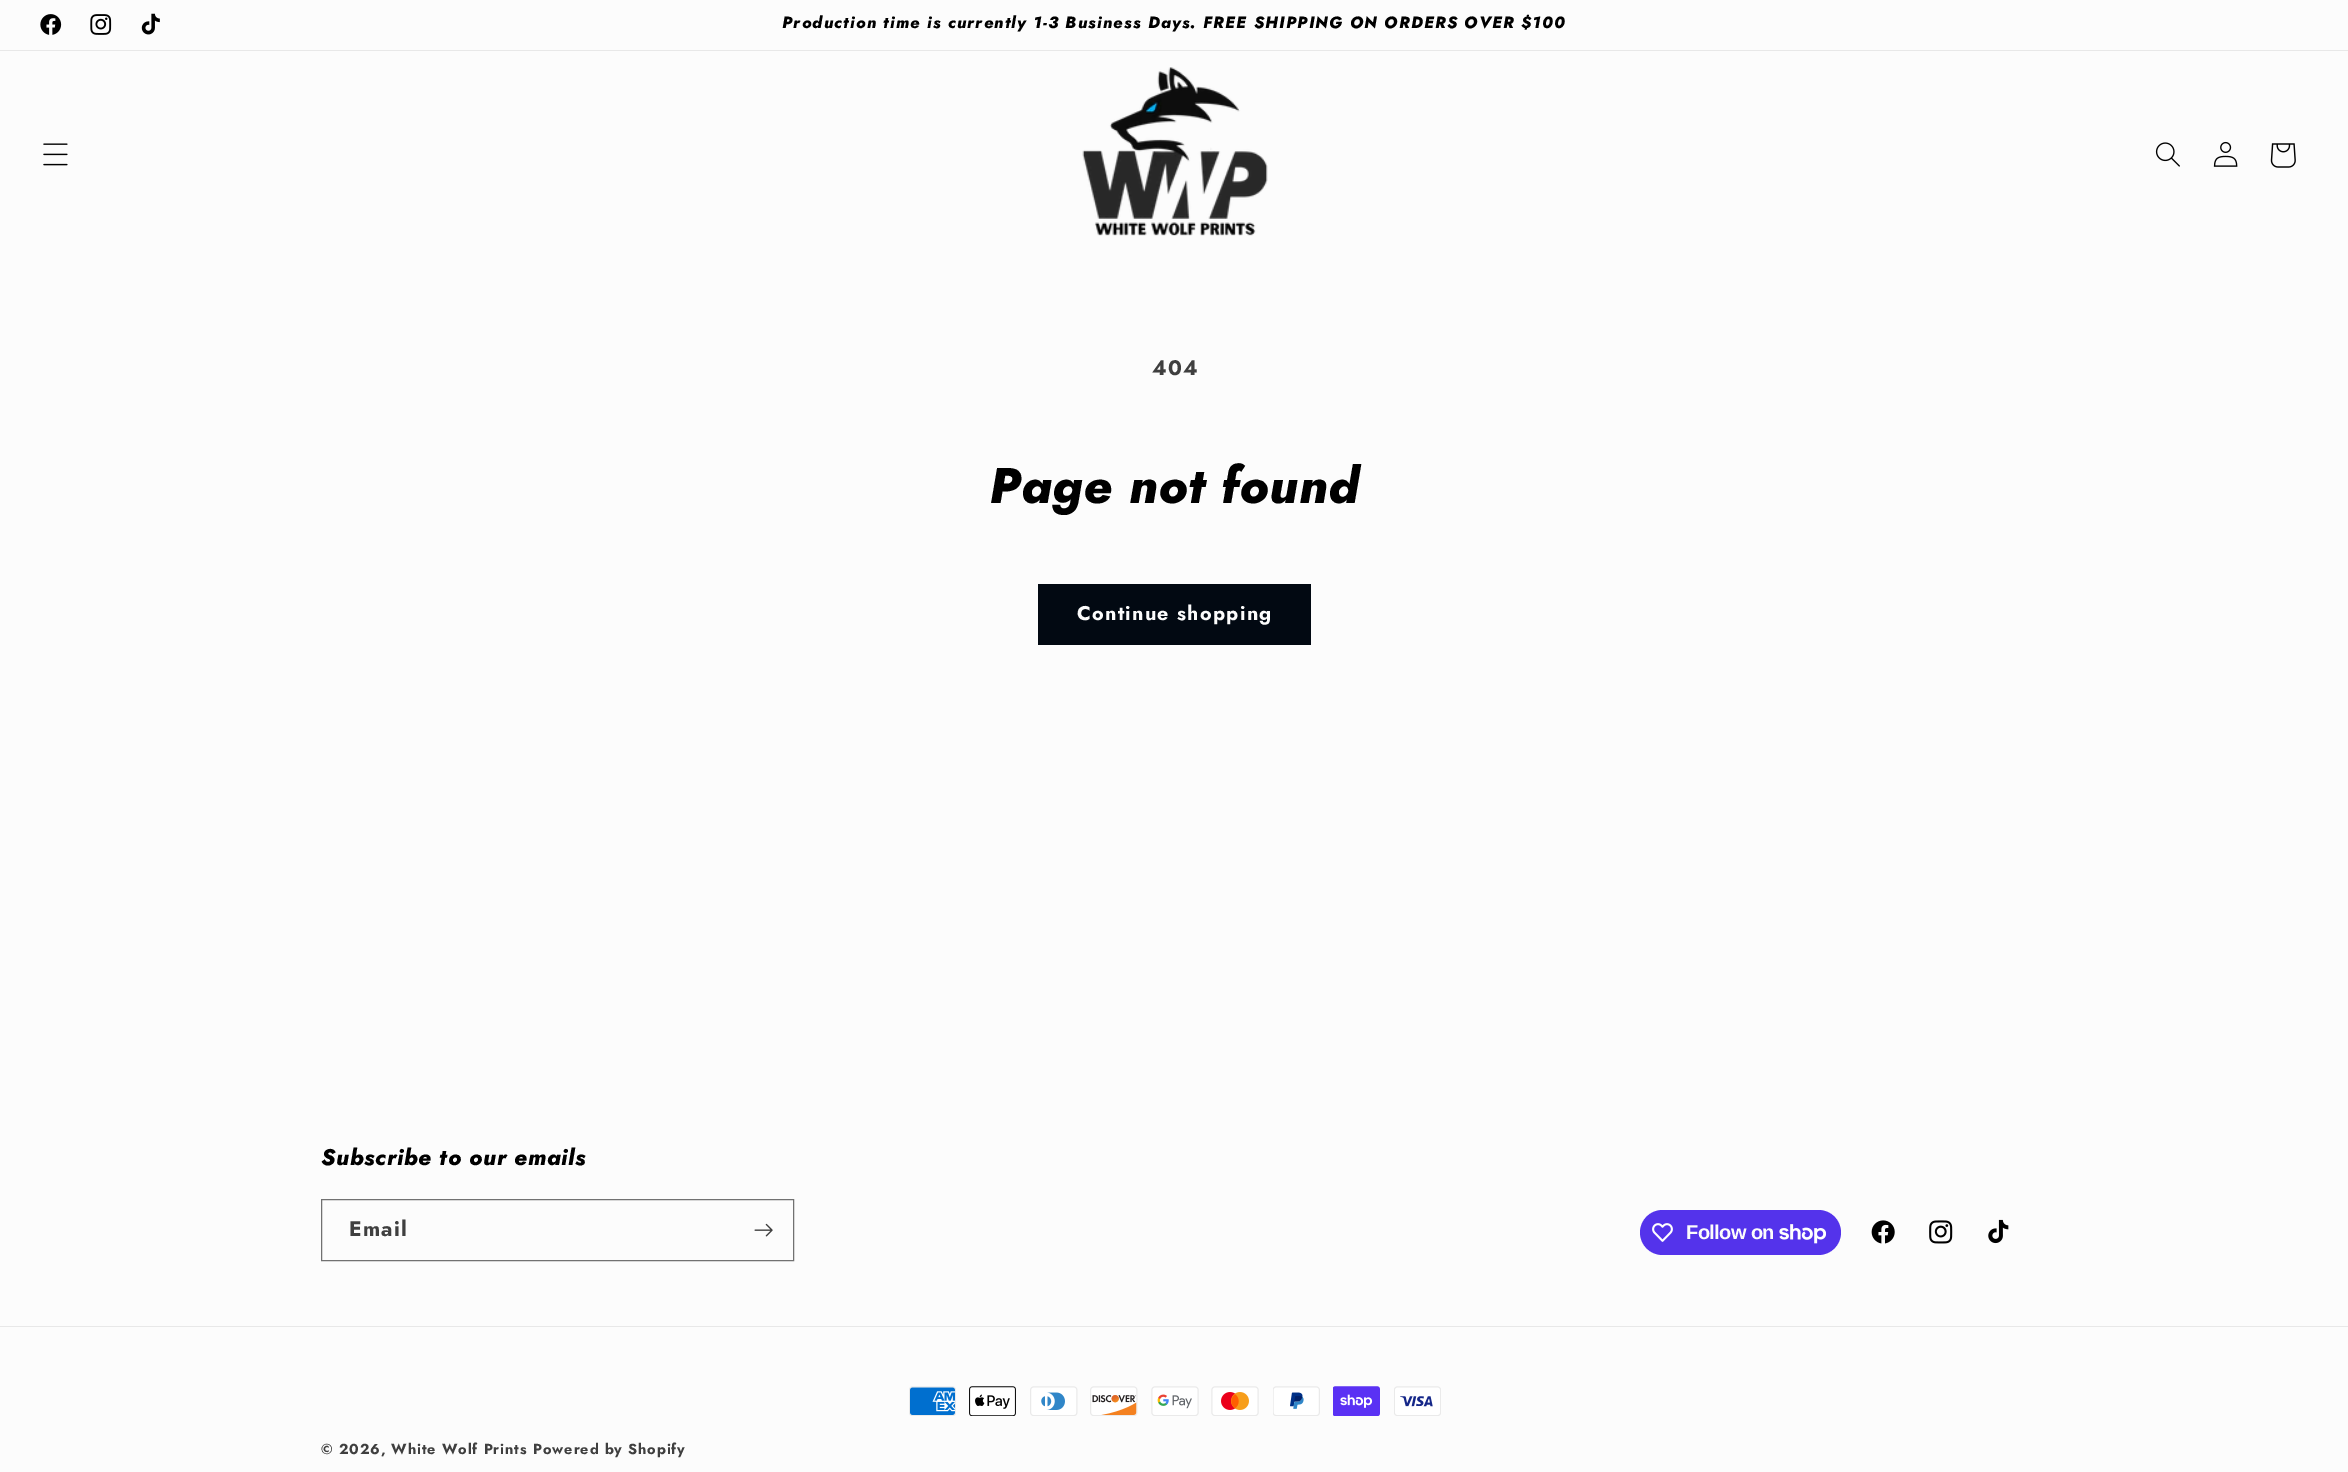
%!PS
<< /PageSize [2348 1472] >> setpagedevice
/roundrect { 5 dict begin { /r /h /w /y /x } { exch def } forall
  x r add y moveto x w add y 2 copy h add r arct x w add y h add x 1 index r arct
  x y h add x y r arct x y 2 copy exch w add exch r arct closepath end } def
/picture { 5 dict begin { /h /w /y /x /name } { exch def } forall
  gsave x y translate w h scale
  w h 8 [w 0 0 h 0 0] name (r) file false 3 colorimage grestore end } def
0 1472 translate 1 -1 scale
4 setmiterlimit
0.988 setgray
0 0 2348 1472 rectfill
0.91 setgray
0 50 2348 1 rectfill
(img1.rgb) 40 14 22 21 picture
(img2.rgb) 90 14 22 21 picture
(img3.rgb) 141 13 19 22 picture
/Jost-ExtraBoldItalic [16.25 0 0 -16.25 0 0] selectfont
0 setgray
782 28 moveto 1.3 0 (Production time is currently 1-3 Business Days. FREE SHIPPING ON ORDERS OVER $100) ashow
(img4.rgb) 43 143 25 23 picture
(img5.rgb) 1082 67 186 169 picture
(img6.rgb) 2155 142 25 25 picture
(img7.rgb) 2213 141 25 26 picture
(img8.rgb) 2270 143 26 25 picture
/Jost-Bold [21 0 0 -21 0 0] selectfont
0.247 setgray
1152 375 moveto 1 0 (404) ashow
/Jost-ExtraBoldItalic [50 0 0 -50 0 0] selectfont
0 setgray
989 503 moveto 0.75 0 (Page not found) ashow
0.008 0.035 0.071 setrgbcolor
1038 584 273 61 rectfill
/Jost-Bold [19.75 0 0 -19.75 0 0] selectfont
0.988 setgray
1077 620 moveto 1.3 0 (Continue shopping) ashow
/Jost-ExtraBoldItalic [22.5 0 0 -22.5 0 0] selectfont
0 setgray
321 1165 moveto 0.75 0 (Subscribe to our emails) ashow
0.443 setgray
321.5 1199.5 472 61 rectstroke
/Jost-Bold [21 0 0 -21 0 0] selectfont
0.247 setgray
349 1236 moveto 1.3 0 (Email) ashow
(img9.rgb) 754 1223 19 14 picture
0.329 0.2 0.922 setrgbcolor
1640 1210 201 45 22.5 roundrect fill
(img10.rgb) 1652 1223 21 19 picture
/LiberationSans-Bold [20 0 0 -20 0 0] selectfont
0.988 setgray
1686 1239 moveto -0.6 0 (Follow on) ashow
(img11.rgb) 1779 1224 47 20 picture
(img12.rgb) 1871 1220 24 24 picture
(img13.rgb) 1929 1220 24 24 picture
(img14.rgb) 1988 1219 21 25 picture
0.91 setgray
0 1326 2348 1 rectfill
(img15.rgb) 909 1386 47 30 picture
(img16.rgb) 969 1386 47 30 picture
(img17.rgb) 1030 1386 48 30 picture
(img18.rgb) 1090 1386 48 30 picture
(img19.rgb) 1151 1386 48 30 picture
(img20.rgb) 1211 1386 48 30 picture
(img21.rgb) 1273 1386 47 30 picture
(img22.rgb) 1333 1386 47 30 picture
(img23.rgb) 1394 1386 47 30 picture
/Jost-Bold [14.5 0 0 -14.5 0 0] selectfont
0.247 setgray
321 1454 moveto 0.9 0 (© 2026, White Wolf Prints) ashow
533 1454 moveto 0.9 0 (Powered by Shopify) ashow
showpage
